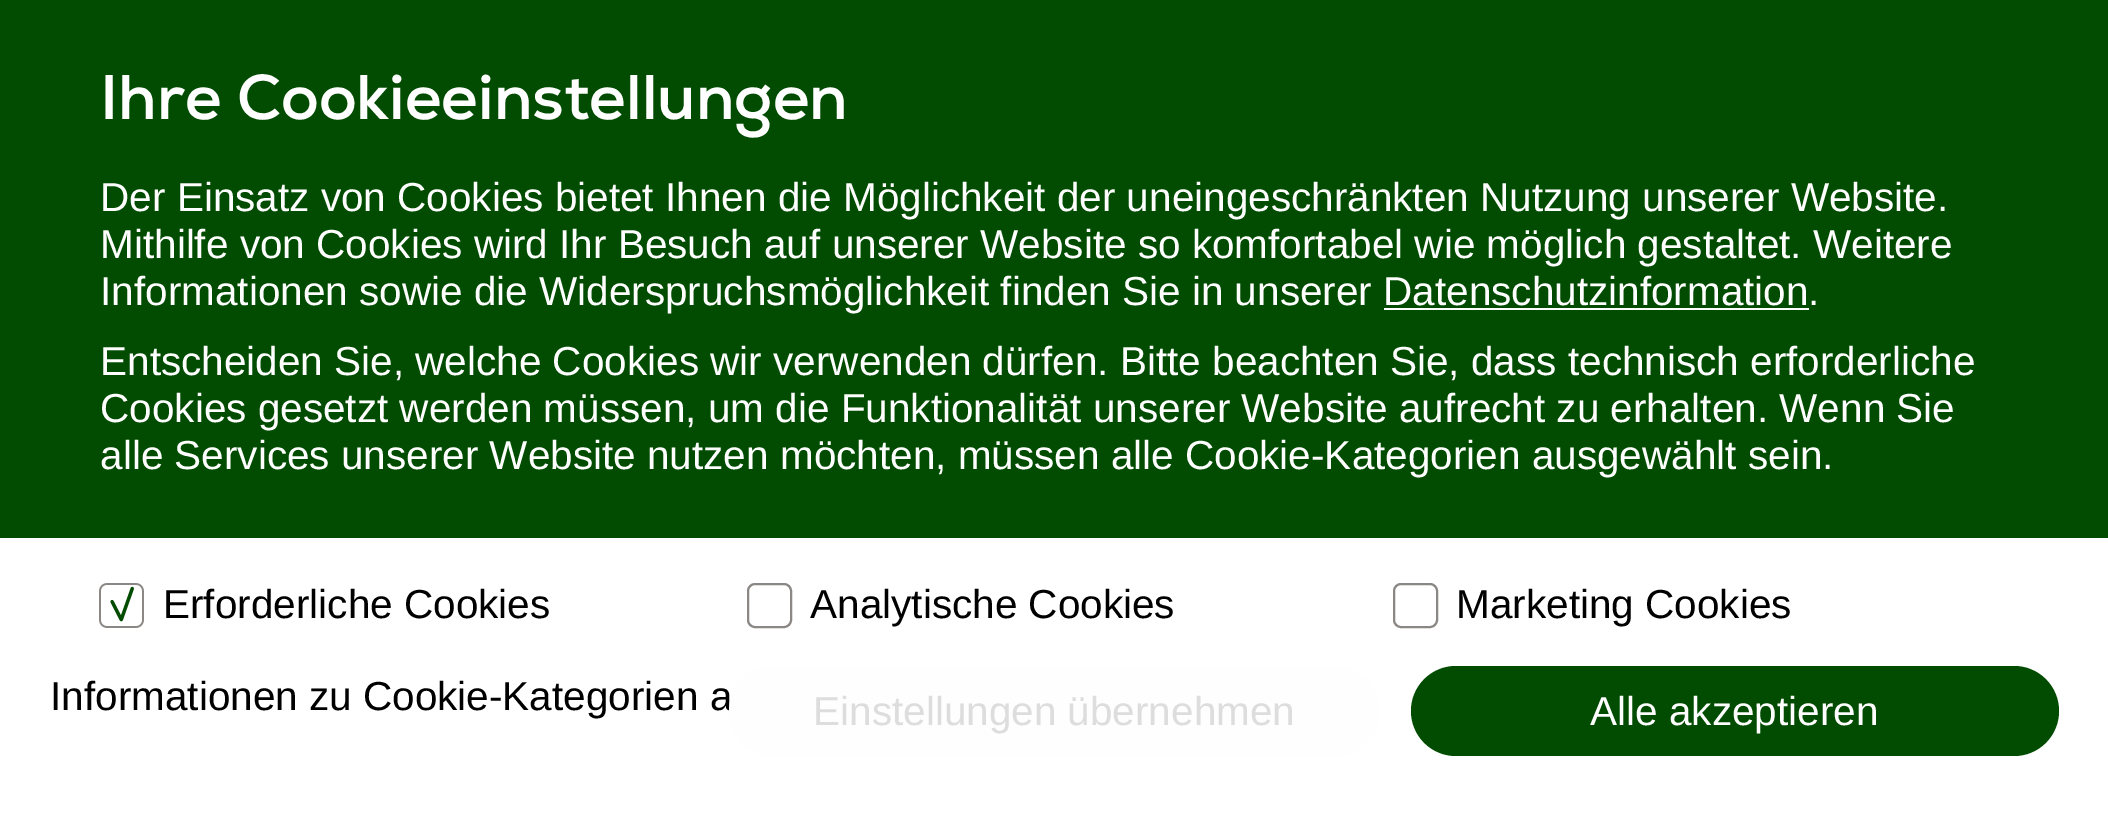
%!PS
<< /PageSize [2108 824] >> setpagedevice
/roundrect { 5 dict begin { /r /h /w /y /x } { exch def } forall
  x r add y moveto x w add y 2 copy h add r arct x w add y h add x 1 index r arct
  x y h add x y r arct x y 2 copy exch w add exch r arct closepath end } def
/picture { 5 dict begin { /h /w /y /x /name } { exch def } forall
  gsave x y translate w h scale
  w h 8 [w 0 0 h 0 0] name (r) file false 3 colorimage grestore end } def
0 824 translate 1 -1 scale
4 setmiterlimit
1 setgray
0 0 2108 824 rectfill
0.008 0.298 0.004 setrgbcolor
0 0 2108 538 rectfill
/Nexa-Bold [63 0 0 -63 0 0] selectfont
1 setgray
100 119 moveto (Ihre Cookieeinstellungen) show
/LiberationSans-Regular [40.5 0 0 -40.5 0 0] selectfont
100 211 moveto (Der Einsatz von Cookies bietet Ihnen die Möglichkeit der uneingeschränkten Nutzung unserer Website.) show
100 258 moveto (Mithilfe von Cookies wird Ihr Besuch auf unserer Website so komfortabel wie möglich gestaltet. Weitere) show
100 305 moveto (Informationen sowie die Widerspruchsmöglichkeit finden Sie in unserer Datenschutzinformation.) show
1384 308 425 2 rectfill
100 375 moveto (Entscheiden Sie, welche Cookies wir verwenden dürfen. Bitte beachten Sie, dass technisch erforderliche) show
100 422 moveto (Cookies gesetzt werden müssen, um die Funktionalität unserer Website aufrecht zu erhalten. Wenn Sie) show
100 469 moveto (alle Services unserer Website nutzen möchten, müssen alle Cookie-Kategorien ausgewählt sein.) show
(img1.rgb) 99 583 45 45 picture
0 setgray
163 618 moveto (Erforderliche Cookies) show
0.541 0.529 0.518 setrgbcolor
2 setlinewidth
748 584 43 43 7 roundrect stroke
0 setgray
810 618 moveto (Analytische Cookies) show
0.541 0.529 0.518 setrgbcolor
1394 584 43 43 7 roundrect stroke
0 setgray
1456 618 moveto (Marketing Cookies) show
50 710 moveto (Informationen zu Cookie-Kategorien a) show
0.996 setgray
729 666 650 90 45 roundrect fill
0.867 setgray
813 725 moveto (Einstellungen übernehmen) show
0.008 0.298 0.004 setrgbcolor
1411 666 648 90 45 roundrect fill
1 setgray
1590 725 moveto (Alle akzeptieren) show
showpage
